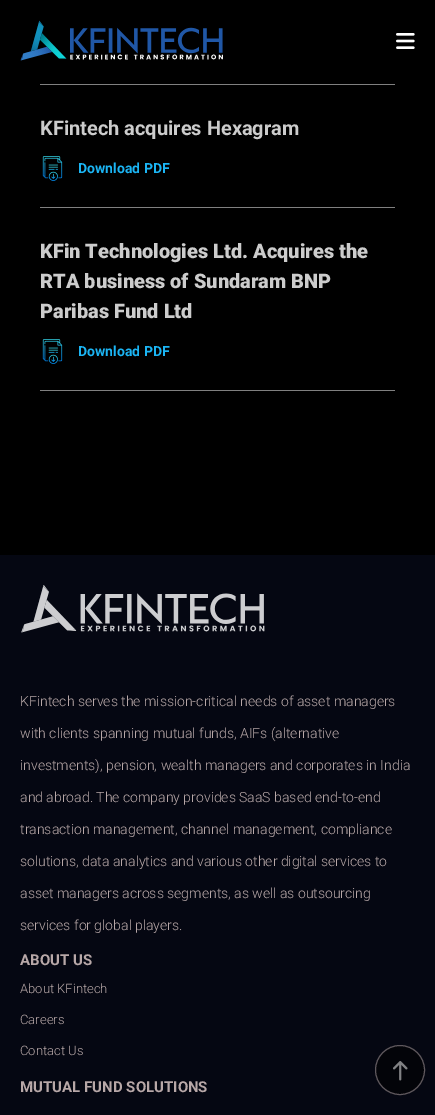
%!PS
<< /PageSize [435 1115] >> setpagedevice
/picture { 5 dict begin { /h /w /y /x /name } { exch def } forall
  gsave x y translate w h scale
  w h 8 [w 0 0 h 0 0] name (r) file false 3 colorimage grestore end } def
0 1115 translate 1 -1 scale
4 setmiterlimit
0 setgray
0 0 435 1115 rectfill
(img1.rgb) 20 20 203 41 picture
(img2.rgb) 396 33 19 16 picture
0.502 setgray
40 84 355 1 rectfill
40 207 355 1 rectfill
/Roboto-Bold [20 0 0 -20 0 0] selectfont
0.8 setgray
40 135 moveto (KFintech acquires Hexagram) show
(img3.rgb) 42 156 21 25 picture
/Roboto-Bold [14 0 0 -14 0 0] selectfont
0.106 0.71 0.957 setrgbcolor
78 173 moveto (Download PDF) show
0.502 setgray
40 390 355 1 rectfill
/Roboto-Black [20 0 0 -20 0 0] selectfont
0.8 setgray
40 258 moveto (KFin Technologies Ltd. Acquires the) show
40 288 moveto (RTA business of Sundaram BNP) show
40 318 moveto (Paribas Fund Ltd) show
(img3.rgb) 42 339 21 25 picture
/Roboto-Bold [14 0 0 -14 0 0] selectfont
0.106 0.71 0.957 setrgbcolor
78 356 moveto (Download PDF) show
0.02 0.027 0.071 setrgbcolor
0 555 435 560 rectfill
(img4.rgb) 21 585 244 48 picture
/Roboto-Light [14 0 0 -14 0 0] selectfont
0.722 0.659 0.659 setrgbcolor
20 706 moveto (KFintech serves the mission-critical needs of asset managers) show
20 738 moveto (with clients spanning mutual funds, AIFs \(alternative) show
20 770 moveto (investments\), pension, wealth managers and corporates in India) show
20 802 moveto (and abroad. The company provides SaaS based end-to-end) show
20 834 moveto (transaction management, channel management, compliance) show
20 866 moveto (solutions, data analytics and various other digital services to) show
20 898 moveto (asset managers across segments, as well as outsourcing) show
20 930 moveto (services for global players.) show
/Roboto-Bold [15 0 0 -15 0 0] selectfont
20 965 moveto (ABOUT US) show
/Roboto-Light [13 0 0 -13 0 0] selectfont
20 993 moveto (About KFintech) show
20 1024 moveto (Careers) show
20 1055 moveto (Contact Us) show
/Roboto-Bold [15 0 0 -15 0 0] selectfont
20 1092 moveto (MUTUAL FUND SOLUTIONS) show
0.012 0.016 0.035 setrgbcolor
newpath 400 1070 24.5 0 360 arc closepath gsave fill grestore
0.373 0.345 0.365 setrgbcolor
stroke
(img5.rgb) 393 1061 15 20 picture
showpage
